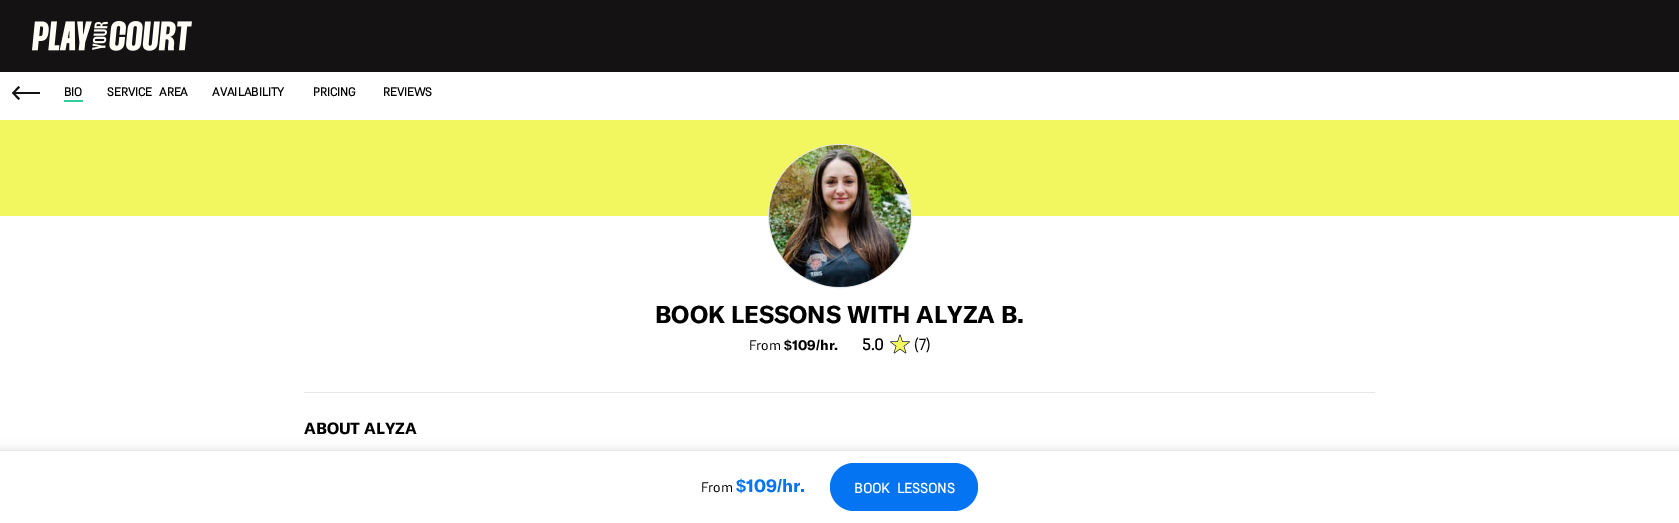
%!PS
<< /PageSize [1679 523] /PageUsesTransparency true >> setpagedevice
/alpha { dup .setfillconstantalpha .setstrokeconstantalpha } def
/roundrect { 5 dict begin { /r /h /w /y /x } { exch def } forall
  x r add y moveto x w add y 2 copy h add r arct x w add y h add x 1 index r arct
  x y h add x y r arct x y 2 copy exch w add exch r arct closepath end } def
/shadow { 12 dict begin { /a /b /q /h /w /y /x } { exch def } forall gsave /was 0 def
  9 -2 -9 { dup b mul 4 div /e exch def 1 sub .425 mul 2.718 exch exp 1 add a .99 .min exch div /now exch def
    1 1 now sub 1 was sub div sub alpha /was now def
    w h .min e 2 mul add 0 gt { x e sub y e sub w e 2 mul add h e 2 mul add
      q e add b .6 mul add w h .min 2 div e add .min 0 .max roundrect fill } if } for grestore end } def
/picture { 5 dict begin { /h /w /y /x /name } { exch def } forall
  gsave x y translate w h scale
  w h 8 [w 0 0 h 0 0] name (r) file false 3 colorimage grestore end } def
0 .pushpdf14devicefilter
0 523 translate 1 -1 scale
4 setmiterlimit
1 setgray
0 0 1679 523 rectfill
0.078 0.071 0.071 setrgbcolor
0 0 1679 72 rectfill
(img1.rgb) 32 21 160 30 picture
newpath 18.5 86 moveto 20 87.5 lineto 15.5 92 lineto 40 92 lineto 40 94 lineto 15.5 94 lineto 20 98.5 lineto 18.5 100 lineto 12 93 lineto closepath fill
0.204 0.796 0.62 setrgbcolor
64 100 19 2 rectfill
/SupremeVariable-Bold [12 0 0 -12 0 0] selectfont
0 setgray
64 96 moveto (BIO) show
107 96 moveto 4 0 32 (SERVICE AREA) widthshow
212 96 moveto (AVAILABILITY) show
313 96 moveto (PRICING) show
383 96 moveto (REVIEWS) show
0.949 0.965 0.373 setrgbcolor
0 120 1679 96 rectfill
0.898 0.906 0.922 setrgbcolor
newpath 840 216 71.5 0 360 arc closepath stroke
(img2.rgb) 769 145 142 142 picture
/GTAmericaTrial-Bold [24 0 0 -24 0 0] selectfont
0 setgray
655 323 moveto (BOOK LESSONS WITH ALYZA B.) show
/SupremeVariable-Regular [14 0 0 -14 0 0] selectfont
749 350 moveto (From) show
/LiberationSans-Bold [14 0 0 -14 0 0] selectfont
784 350 moveto ($) show
/GTAmericaTrial-Bold [14 0 0 -14 0 0] selectfont
792 350 moveto (109) show
/LiberationSans-Bold [14 0 0 -14 0 0] selectfont
816 350 moveto (/) show
/GTAmericaTrial-Bold [14 0 0 -14 0 0] selectfont
820 350 moveto (hr.) show
/SupremeVariable-Bold [16 0 0 -16 0 0] selectfont
862 350 moveto (5.0) show
(img3.rgb) 890 334 20 20 picture
/SupremeVariable-Regular [16 0 0 -16 0 0] selectfont
914 350 moveto (\(7\)) show
0.898 0.906 0.922 setrgbcolor
304 392 1071 1 rectfill
/GTAmericaTrial-Bold [16 0 0 -16 0 0] selectfont
0 setgray
304 434 moveto (ABOUT ALYZA) show
-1 449 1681 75 0 5 0.1 shadow
1 setgray
0 451 1679 72 rectfill
0.898 0.906 0.922 setrgbcolor
0 450 1679 1 rectfill
/SupremeVariable-Regular [14 0 0 -14 0 0] selectfont
0 setgray
701 492 moveto (From) show
/LiberationSans-Bold [18 0 0 -18 0 0] selectfont
0.016 0.455 0.949 setrgbcolor
736 492 moveto ($) show
/GTAmericaTrial-Bold [18 0 0 -18 0 0] selectfont
746 492 moveto (109) show
/LiberationSans-Bold [18 0 0 -18 0 0] selectfont
777 492 moveto (/) show
/GTAmericaTrial-Bold [18 0 0 -18 0 0] selectfont
782 492 moveto (hr.) show
830 463 148 48 24 roundrect fill
/SupremeVariable-Bold [14 0 0 -14 0 0] selectfont
1 setgray
854 493 moveto 4 0 32 (BOOK LESSONS) widthshow
.poppdf14devicefilter showpage
